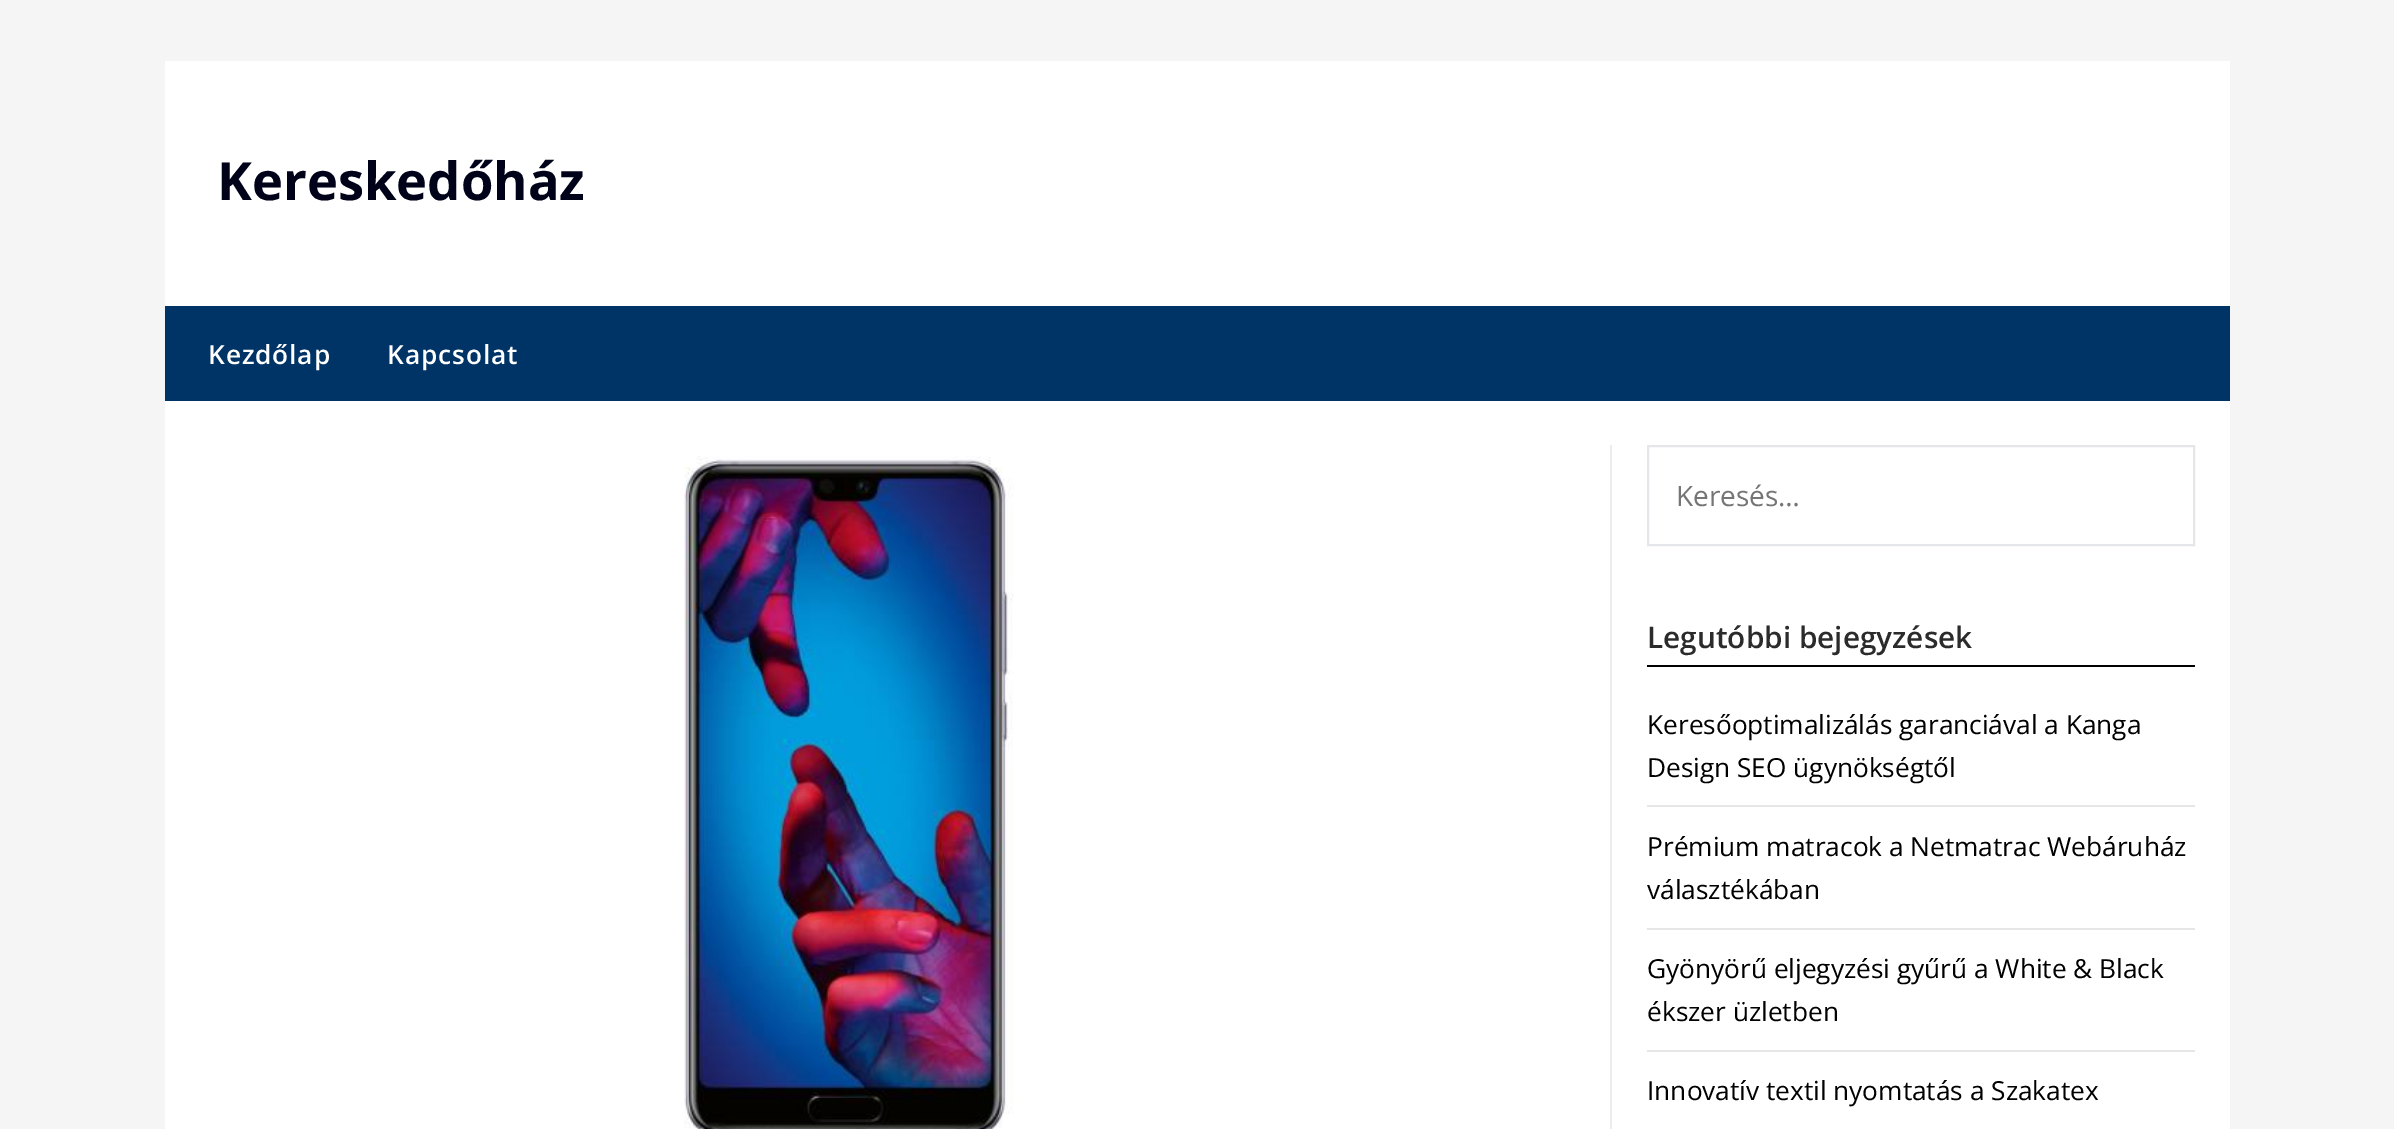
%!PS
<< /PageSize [2394 1129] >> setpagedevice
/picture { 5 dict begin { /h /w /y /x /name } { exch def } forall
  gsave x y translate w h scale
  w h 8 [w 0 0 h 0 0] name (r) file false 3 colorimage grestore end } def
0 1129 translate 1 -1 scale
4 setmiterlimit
0.961 setgray
0 0 2394 1129 rectfill
1 setgray
165 61 2065 245 rectfill
/OpenSans-Bold [52.5 0 0 -52.5 0 0] selectfont
0 0.008 0.102 setrgbcolor
217 200 moveto (Kereskedőház) show
0 0.2 0.4 setrgbcolor
165 306 2065 95 rectfill
/OpenSans-SemiBold [26.25 0 0 -26.25 0 0] selectfont
1 setgray
208 364 moveto 0.9 0 (Kezdőlap) ashow
387 364 moveto 0.9 0 (Kapcsolat) ashow
165 401 2065 728 rectfill
(img1.rgb) 684 456 330 673 picture
0.925 setgray
1610 445 2 684 rectfill
0.898 0.902 0.914 setrgbcolor
2 setlinewidth
1648 446 546 99 rectstroke
/OpenSans-Regular [28 0 0 -28 0 0] selectfont
0.459 setgray
1676 506 moveto (Keresés…) show
0 setgray
1647 665 548 2 rectfill
/OpenSans-SemiBold [29.75 0 0 -29.75 0 0] selectfont
0.169 setgray
1647 648 moveto (Legutóbbi bejegyzések) show
0.902 setgray
1647 805 548 2 rectfill
/OpenSans-Regular [26.25 0 0 -26.25 0 0] selectfont
0 setgray
1647 734 moveto (Keresőoptimalizálás garanciával a Kanga) show
1647 777 moveto (Design SEO ügynökségtől) show
0.902 setgray
1647 928 548 2 rectfill
0 setgray
1647 856 moveto (Prémium matracok a Netmatrac Webáruház) show
1647 899 moveto (választékában) show
0.902 setgray
1647 1050 548 2 rectfill
0 setgray
1647 978 moveto (Gyönyörű eljegyzési gyűrű a White & Black) show
1647 1021 moveto (ékszer üzletben) show
1647 1100 moveto (Innovatív textil nyomtatás a Szakatex) show
showpage
